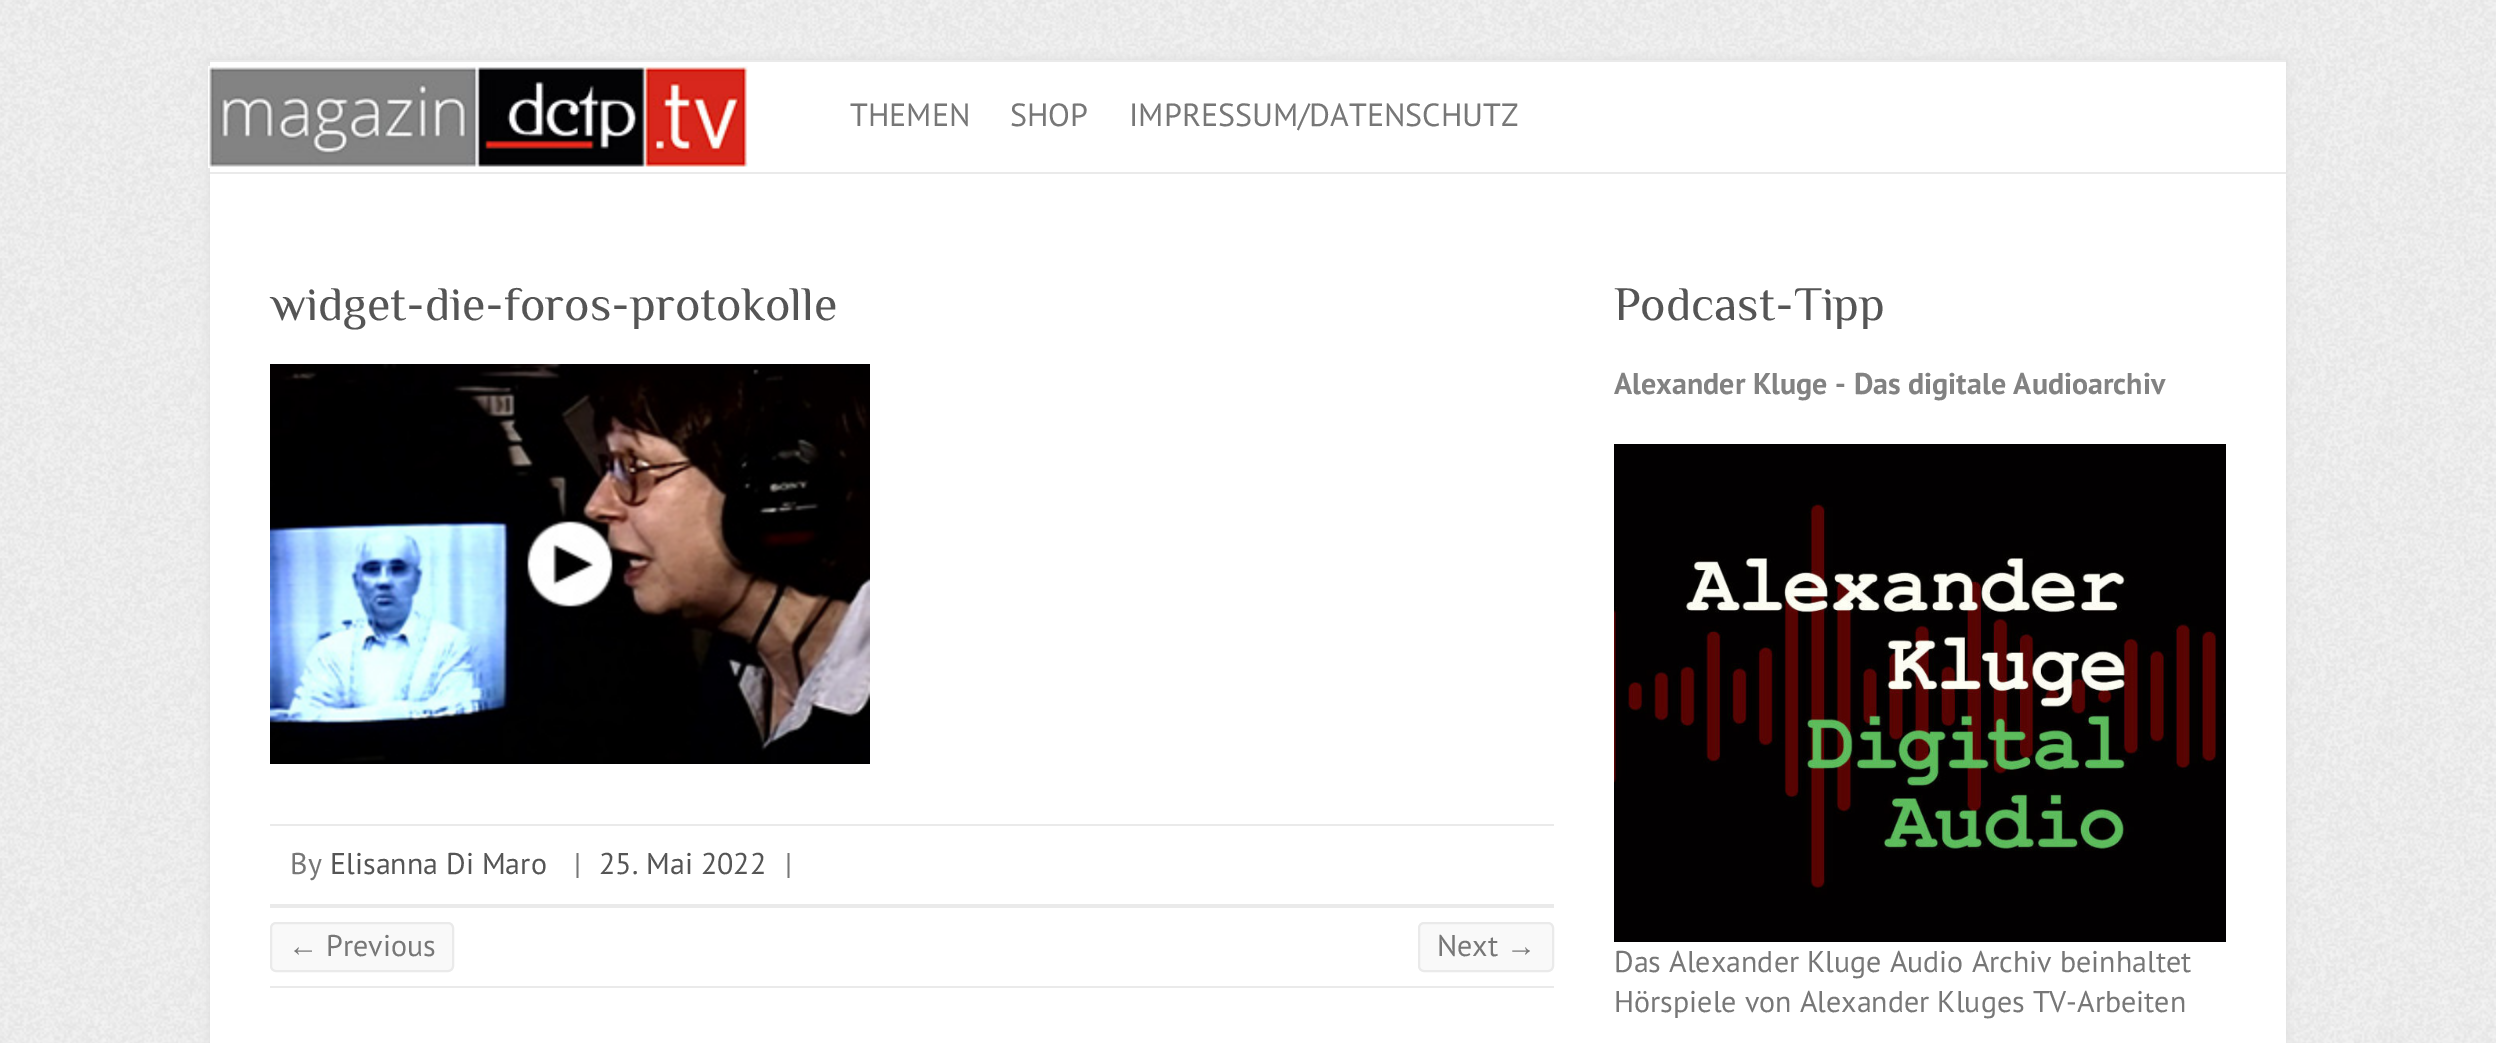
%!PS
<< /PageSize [2496 1043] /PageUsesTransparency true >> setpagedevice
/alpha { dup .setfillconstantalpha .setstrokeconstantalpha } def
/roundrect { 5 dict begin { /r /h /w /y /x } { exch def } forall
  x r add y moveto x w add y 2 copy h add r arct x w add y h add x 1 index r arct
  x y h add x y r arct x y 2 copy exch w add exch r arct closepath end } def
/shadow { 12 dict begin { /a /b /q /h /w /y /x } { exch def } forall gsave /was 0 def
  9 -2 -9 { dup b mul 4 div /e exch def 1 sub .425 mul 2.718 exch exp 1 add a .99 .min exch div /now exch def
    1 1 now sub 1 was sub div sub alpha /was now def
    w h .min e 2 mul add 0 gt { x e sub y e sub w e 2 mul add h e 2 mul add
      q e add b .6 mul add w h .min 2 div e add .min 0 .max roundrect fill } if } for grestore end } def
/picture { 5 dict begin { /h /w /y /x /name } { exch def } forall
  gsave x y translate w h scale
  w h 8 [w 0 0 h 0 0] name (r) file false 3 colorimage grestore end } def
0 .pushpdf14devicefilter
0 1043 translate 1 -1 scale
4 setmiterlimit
1 setgray
0 0 2496 1043 rectfill
(img1.rgb) 0 0 2496 1043 picture
0.867 setgray
210 60 2076 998 0 5 1 shadow
1 setgray
210 62 2076 981 rectfill
0.918 setgray
210 60 2076 2 rectfill
210 172 2076 2 rectfill
(img2.rgb) 208 66 540 102 picture
/PTSans-Regular [32 0 0 -32 0 0] selectfont
0.467 setgray
850 126 moveto (THEMEN) show
1010 126 moveto (SHOP) show
1129 126 moveto (IMPRESSUM/DATENSCHUTZ) show
/Philosopher-Regular [48 0 0 -48 0 0] selectfont
0.333 setgray
270 320 moveto (widget-die-foros-protokolle) show
(img3.rgb) 270 364 600 400 picture
0.918 setgray
270 824 1284 2 rectfill
270 904 1284 4 rectfill
/PTSans-Regular [30 0 0 -30 0 0] selectfont
0.467 setgray
290 874 moveto (By) show
0.333 setgray
330 874 moveto (Elisanna Di Maro) show
0.467 setgray
574 874 moveto (|) show
0.333 setgray
599 874 moveto (25. Mai 2022) show
0.467 setgray
785 874 moveto (|) show
0.918 setgray
270 986 1284 2 rectfill
0.976 setgray
271 923 182 48 5 roundrect gsave fill grestore
0.918 setgray
2 setlinewidth
stroke
/LiberationSans-Regular [30 0 0 -30 0 0] selectfont
0.467 setgray
288 956 moveto (←) show
/PTSans-Regular [30 0 0 -30 0 0] selectfont
326 956 moveto (Previous) show
0.976 setgray
1419 923 134 48 5 roundrect gsave fill grestore
0.918 setgray
stroke
0.467 setgray
1437 956 moveto (Next) show
/LiberationSans-Regular [30 0 0 -30 0 0] selectfont
1506 956 moveto (→) show
/Philosopher-Regular [48 0 0 -48 0 0] selectfont
0.333 setgray
1614 320 moveto (Podcast-Tipp) show
/PTSans-Bold [30 0 0 -30 0 0] selectfont
0.51 setgray
1614 394 moveto (Alexander Kluge - Das digitale Audioarchiv) show
(img4.rgb) 1614 444 612 498 picture
/PTSans-Regular [30 0 0 -30 0 0] selectfont
0.467 setgray
1614 972 moveto (Das Alexander Kluge Audio Archiv beinhaltet) show
1614 1012 moveto (Hörspiele von Alexander Kluges TV-Arbeiten) show
.poppdf14devicefilter showpage
